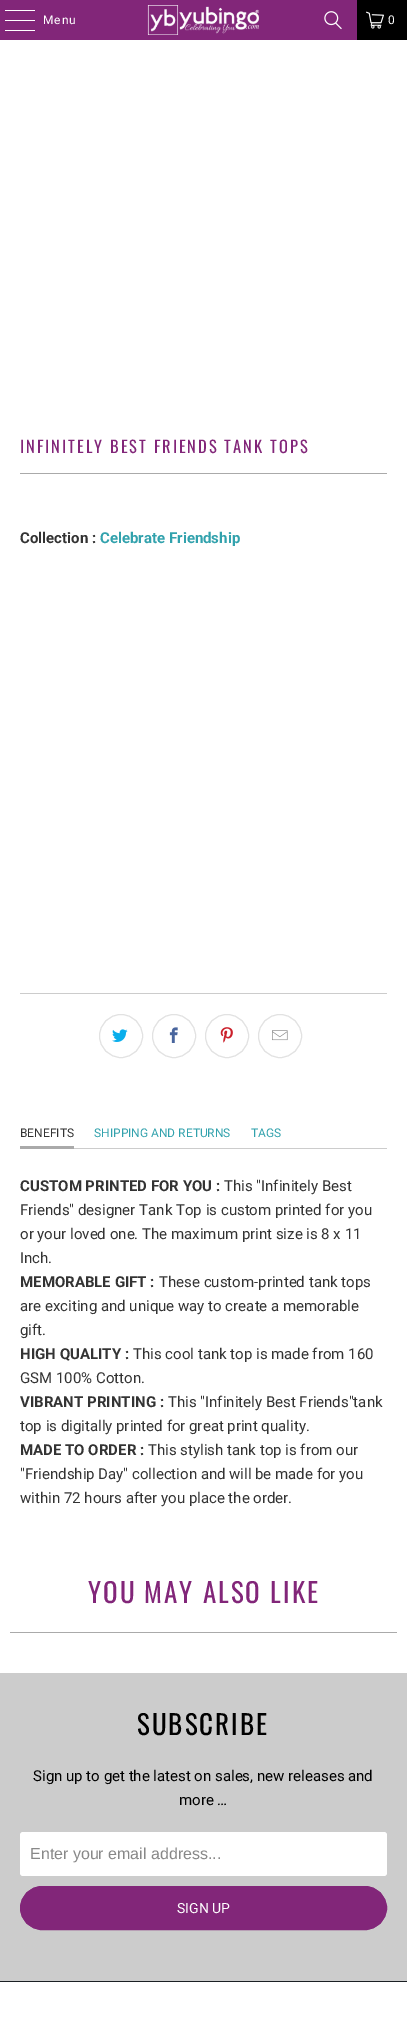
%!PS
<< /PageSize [407 2036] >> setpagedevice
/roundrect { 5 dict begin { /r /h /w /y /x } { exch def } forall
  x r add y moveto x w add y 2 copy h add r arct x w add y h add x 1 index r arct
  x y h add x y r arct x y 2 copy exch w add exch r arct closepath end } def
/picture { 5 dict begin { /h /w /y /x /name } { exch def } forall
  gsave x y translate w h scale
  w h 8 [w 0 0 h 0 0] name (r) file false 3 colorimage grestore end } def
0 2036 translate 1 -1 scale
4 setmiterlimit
1 setgray
0 0 407 2036 rectfill
0.51 0.149 0.475 setrgbcolor
0 0 357 40 rectfill
1 setgray
5 10 30 1 0.5 roundrect fill
5 20 30 1 0.5 roundrect fill
5 30 30 1 0.5 roundrect fill
/Roboto-Regular [12 0 0 -12 0 0] selectfont
43 24 moveto 1 0 (Menu) ashow
(img1.rgb) 147 5 112 30 picture
(img2.rgb) 324 11 18 19 picture
0 setgray
357 0 50 40 rectfill
(img3.rgb) 366 11 18 18 picture
1 setgray
388 24 moveto 1 0 (0) ashow
/Oswald-Regular [16.5 0 0 -16.5 0 0] selectfont
0.51 0.149 0.475 setrgbcolor
20 453 moveto 2 0 (INFINITELY BEST FRIENDS TANK TOPS) ashow
0.667 setgray
20 473 367 1 rectfill
/Roboto-Bold [15 0 0 -15 0 0] selectfont
0.2 setgray
20 543 moveto (Collection :) show
0.196 0.635 0.678 setrgbcolor
100 543 moveto (Celebrate Friendship) show
0.8 setgray
20 993 367 1 rectfill
0.886 setgray
newpath 121 1036 21.5 0 360 arc closepath stroke
(img4.rgb) 112 1029 16 13 picture
newpath 174 1036 21.5 0 360 arc closepath stroke
(img5.rgb) 169 1027 9 16 picture
newpath 227 1036 21.5 0 360 arc closepath stroke
(img6.rgb) 220 1027 13 16 picture
newpath 280 1036 21.5 0 360 arc closepath stroke
(img7.rgb) 272 1030 16 11 picture
0.8 setgray
74 1148 313 1 rectfill
0.667 setgray
20 1146 54 3 rectfill
/Roboto-Regular [12 0 0 -12 0 0] selectfont
0.2 setgray
20 1137 moveto (BENEFITS) show
0.196 0.635 0.678 setrgbcolor
94 1137 moveto (SHIPPING AND RETURNS) show
251 1137 moveto (TAGS) show
/Roboto-Bold [15 0 0 -15 0 0] selectfont
0.2 setgray
20 1191 moveto (CUSTOM PRINTED FOR YOU :) show
/Roboto-Regular [15 0 0 -15 0 0] selectfont
224 1191 moveto (This "Infinitely Best) show
20 1215 moveto (Friends" designer Tank Top is custom printed for you) show
20 1239 moveto (or your loved one. The maximum print size is 8 x 11) show
20 1263 moveto (Inch.) show
/Roboto-Bold [15 0 0 -15 0 0] selectfont
20 1287 moveto (MEMORABLE GIFT :) show
/Roboto-Regular [15 0 0 -15 0 0] selectfont
159 1287 moveto (These custom-printed tank tops) show
20 1311 moveto (are exciting and unique way to create a memorable) show
20 1335 moveto (gift.) show
/Roboto-Bold [15 0 0 -15 0 0] selectfont
20 1359 moveto (HIGH QUALITY :) show
/Roboto-Regular [15 0 0 -15 0 0] selectfont
133 1359 moveto (This cool tank top is made from 160) show
20 1383 moveto (GSM 100% Cotton.) show
/Roboto-Bold [15 0 0 -15 0 0] selectfont
20 1407 moveto (VIBRANT PRINTING :) show
/Roboto-Regular [15 0 0 -15 0 0] selectfont
168 1407 moveto (This "Infinitely Best Friends"tank) show
20 1431 moveto (top is digitally printed for great print quality.) show
/Roboto-Bold [15 0 0 -15 0 0] selectfont
20 1455 moveto (MADE TO ORDER :) show
/Roboto-Regular [15 0 0 -15 0 0] selectfont
148 1455 moveto (This stylish tank top is from our) show
20 1479 moveto ("Friendship Day" collection and will be made for you) show
20 1503 moveto (within 72 hours after you place the order.) show
/Oswald-Regular [27 0 0 -27 0 0] selectfont
0.51 0.149 0.475 setrgbcolor
88 1603 moveto 2 0 (YOU MAY ALSO LIKE) ashow
0.667 setgray
10 1632 387 1 rectfill
0.8 setgray
0 1673 407 308 rectfill
0 setgray
137 1735 moveto 2 0 (SUBSCRIBE) ashow
/Roboto-Regular [15 0 0 -15 0 0] selectfont
33 1781 moveto (Sign up to get the latest on sales, new releases and) show
179 1805 moveto (more …) show
1 setgray
20 1832 367 44 3 roundrect fill
/LiberationSans-Regular [16 0 0 -16 0 0] selectfont
0.533 setgray
30 1859 moveto (Enter your email address...) show
0.51 0.149 0.475 setrgbcolor
20.5 1886.5 366 43 21.5 roundrect gsave fill grestore
stroke
/Roboto-Regular [14 0 0 -14 0 0] selectfont
1 setgray
177 1913 moveto (SIGN UP) show
0.106 0.122 0.137 setrgbcolor
0 1981 407 1 rectfill
showpage
